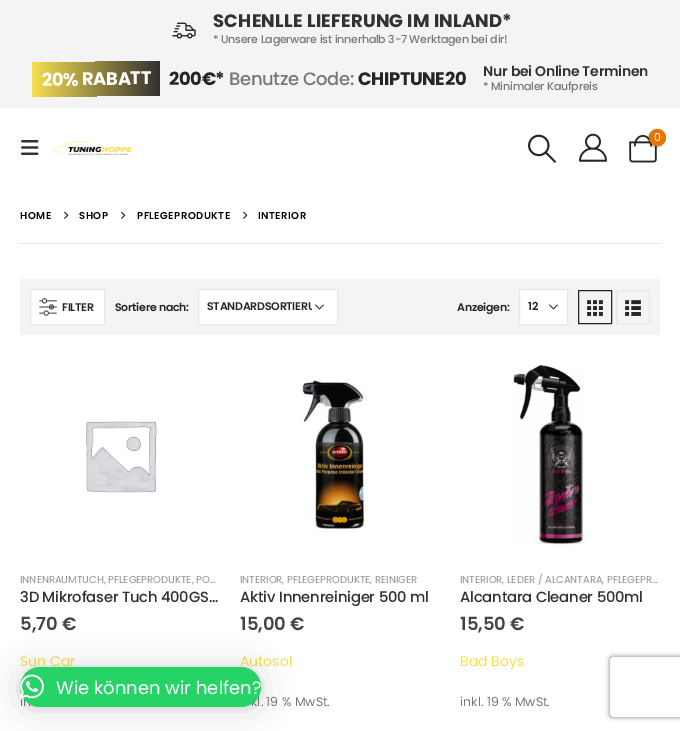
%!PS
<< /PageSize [680 731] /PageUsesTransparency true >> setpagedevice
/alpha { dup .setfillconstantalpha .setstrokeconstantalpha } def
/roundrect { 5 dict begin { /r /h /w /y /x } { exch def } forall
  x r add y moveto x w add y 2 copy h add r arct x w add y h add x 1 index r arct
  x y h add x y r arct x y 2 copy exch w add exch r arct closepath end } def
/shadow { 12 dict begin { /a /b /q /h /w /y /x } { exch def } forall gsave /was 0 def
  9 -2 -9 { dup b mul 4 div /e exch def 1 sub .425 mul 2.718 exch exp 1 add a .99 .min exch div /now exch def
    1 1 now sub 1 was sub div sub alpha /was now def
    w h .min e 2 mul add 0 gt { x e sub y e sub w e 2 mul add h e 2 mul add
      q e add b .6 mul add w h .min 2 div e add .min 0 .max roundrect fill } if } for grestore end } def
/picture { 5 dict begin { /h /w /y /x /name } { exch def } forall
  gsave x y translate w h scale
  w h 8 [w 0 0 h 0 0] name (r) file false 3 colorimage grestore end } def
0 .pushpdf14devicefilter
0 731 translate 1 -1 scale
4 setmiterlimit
1 setgray
0 0 680 731 rectfill
0.957 setgray
0 0 680 108 rectfill
(img1.rgb) 172 22 24 17 picture
/Poppins-Bold [18 0 0 -18 0 0] selectfont
0.196 setgray
213 27 moveto 0.2 0 (SCHENLLE LIEFERUNG IM INLAND*) ashow
/Poppins-Medium [11 0 0 -11 0 0] selectfont
0.467 setgray
213 43 moveto -0.22 0 (* Unsere Lagerware ist innerhalb 3-7 Werktagen bei dir!) ashow
gsave newpath 32 63 moveto 159 61 lineto 160 95 lineto 33 97 lineto closepath clip newpath
<< /ShadingType 2 /ColorSpace /DeviceRGB /Coords [32 80 160 78] /Extend [true true] /Function << /FunctionType 2 /Domain [0 1] /C0 [0.973 0.875 0.314] /C1 [0.196 0.196 0.196] /N 1 >> >> shfill grestore
/Poppins-Bold [18 0 0 -18 0 0] selectfont
1 setgray
gsave 42 86 translate -1 rotate 0 0 moveto -0.4 0 (20% RABATT) ashow grestore
0.133 0.145 0.161 setrgbcolor
169 85 moveto -0.4 0 (200€*) ashow
/Poppins-Medium [18 0 0 -18 0 0] selectfont
0.467 setgray
229 85 moveto -0.4 0 (Benutze Code:) ashow
/Poppins-Bold [18 0 0 -18 0 0] selectfont
0.133 0.145 0.161 setrgbcolor
358 85 moveto -0.4 0 (CHIPTUNE20) ashow
/Poppins-SemiBold [14 0 0 -14 0 0] selectfont
0.196 setgray
483 76 moveto -0.25 0 (Nur bei Online Terminen) ashow
/Poppins-Medium [11 0 0 -11 0 0] selectfont
0.467 setgray
483 90 moveto -0.22 0 (* Minimaler Kaufpreis) ashow
(img2.rgb) 21 140 18 15 picture
(img3.rgb) 52 140 80 15 picture
(img4.rgb) 528 134 28 29 picture
(img5.rgb) 579 133 28 29 picture
(img6.rgb) 629 135 28 28 picture
0 setgray
648 130 17 17 8.5 1 0.3 shadow
0.925 0.447 0 setrgbcolor
newpath 657.5 137.5 8.5 0 360 arc closepath fill
/Poppins-Regular [11 0 0 -11 0 0] selectfont
1 setgray
654 141 moveto (0) show
0.906 setgray
20 243 640 1 rectfill
/Poppins-SemiBold [10 0 0 -10 0 0] selectfont
0 setgray
20 219 moveto 0.5 0 (HOME) ashow
(img7.rgb) 64 211 5 8 picture
79 219 moveto 0.5 0 (SHOP) ashow
(img7.rgb) 121 211 5 8 picture
137 219 moveto 0.5 0 (PFLEGEPRODUKTE) ashow
(img7.rgb) 243 211 5 8 picture
258 219 moveto 0.5 0 (INTERIOR) ashow
0.957 setgray
20 279 640 56 rectfill
1 setgray
newpath 30.5 289.5 moveto 104.5 289.5 lineto 104.5 324.5 lineto 30.5 324.5 lineto closepath gsave fill grestore
0.906 setgray
stroke
(img8.rgb) 39 298 18 18 picture
/Poppins-SemiBold [11 0 0 -11 0 0] selectfont
0.133 0.145 0.161 setrgbcolor
62 311 moveto -0.25 0 (FILTER) ashow
115 311 moveto -0.25 0 (Sortiere nach:) ashow
1 setgray
199 290 138 34 rectfill
(img9.rgb) 315 304 9 6 picture
0.906 setgray
198.5 289.5 139 35 rectstroke
gsave
207 299 105 16 rectclip
0.133 0.145 0.161 setrgbcolor
207 310 moveto -0.25 0 (STANDARDSORTIERU) ashow
grestore
0.133 0.145 0.161 setrgbcolor
457 311 moveto -0.25 0 (Anzeigen:) ashow
1 setgray
520 290 47 34 rectfill
(img9.rgb) 549 304 9 6 picture
0.906 setgray
519.5 289.5 48 35 rectstroke
0.133 0.145 0.161 setrgbcolor
528 310 moveto -0.25 0 (12) ashow
578.5 290.5 33 33 rectstroke
(img10.rgb) 587 300 16 16 picture
0.906 setgray
616.5 290.5 33 33 rectstroke
(img11.rgb) 625 300 16 16 picture
(img12.rgb) 86 421 71 72 picture
/Poppins-Regular [10 0 0 -10 0 0] selectfont
0.573 setgray
20 583 moveto (INNENRAUMTUCH, PFLEGEPRODUKTE, PO…) show
/Poppins-Medium [14.75 0 0 -14.75 0 0] selectfont
0.196 setgray
20 602 moveto -0.2 0 (3D Mikrofaser Tuch 400GS…) ashow
/Poppins-SemiBold [18 0 0 -18 0 0] selectfont
0.267 setgray
20 630 moveto (5,70 €) show
/Poppins-Regular [14 0 0 -14 0 0] selectfont
0.973 0.875 0.314 setrgbcolor
20 666 moveto (Sun Car) show
/Poppins-Regular [12.5 0 0 -12.5 0 0] selectfont
0.467 setgray
20 706 moveto (in) show
(img13.rgb) 300 377 68 154 picture
/Poppins-Regular [10 0 0 -10 0 0] selectfont
0.573 setgray
240 583 moveto (INTERIOR, PFLEGEPRODUKTE, REINIGER) show
/Poppins-Medium [14.75 0 0 -14.75 0 0] selectfont
0.196 setgray
240 602 moveto -0.2 0 (Aktiv Innenreiniger 500 ml) ashow
/Poppins-SemiBold [18 0 0 -18 0 0] selectfont
0.267 setgray
240 630 moveto (15,00 €) show
/Poppins-Regular [14 0 0 -14 0 0] selectfont
0.973 0.875 0.314 setrgbcolor
240 666 moveto (Autosol) show
/Poppins-Regular [12.5 0 0 -12.5 0 0] selectfont
0.467 setgray
251 706 moveto (kl. 19 % MwSt.) show
(img14.rgb) 513 364 74 181 picture
/Poppins-Regular [10 0 0 -10 0 0] selectfont
0.573 setgray
460 583 moveto (INTERIOR, LEDER / ALCANTARA, PFLEGEPR…) show
/Poppins-Medium [14.75 0 0 -14.75 0 0] selectfont
0.196 setgray
460 602 moveto -0.2 0 (Alcantara Cleaner 500ml) ashow
/Poppins-SemiBold [18 0 0 -18 0 0] selectfont
0.267 setgray
460 630 moveto (15,50 €) show
/Poppins-Regular [14 0 0 -14 0 0] selectfont
0.973 0.875 0.314 setrgbcolor
460 666 moveto (Bad Boys) show
/Poppins-Regular [12.5 0 0 -12.5 0 0] selectfont
0.467 setgray
460 706 moveto (inkl. 19 % MwSt.) show
0 setgray
20 669 241 40 20 16 0.16 shadow
20 668 241 40 20 3 0.06 shadow
0.145 0.827 0.4 setrgbcolor
20 667 241 40 20 roundrect fill
(img15.rgb) 20 674 24 25 picture
/Poppins-Regular [18 0 0 -18 0 0] selectfont
1 setgray
56 694 moveto (Wie können wir helfen?) show
gsave
newpath 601 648 moveto 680 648 lineto 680 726 lineto 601 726 lineto closepath 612 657 moveto 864 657 lineto 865 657 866 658 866 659 curveto 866 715 lineto 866 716 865 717 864 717 curveto 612 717 lineto 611 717 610 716 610 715 curveto 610 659 lineto 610 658 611 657 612 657 curveto closepath eoclip newpath
0.502 setgray
610 657 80 60 2 2.5 1 shadow
grestore
.poppdf14devicefilter showpage
